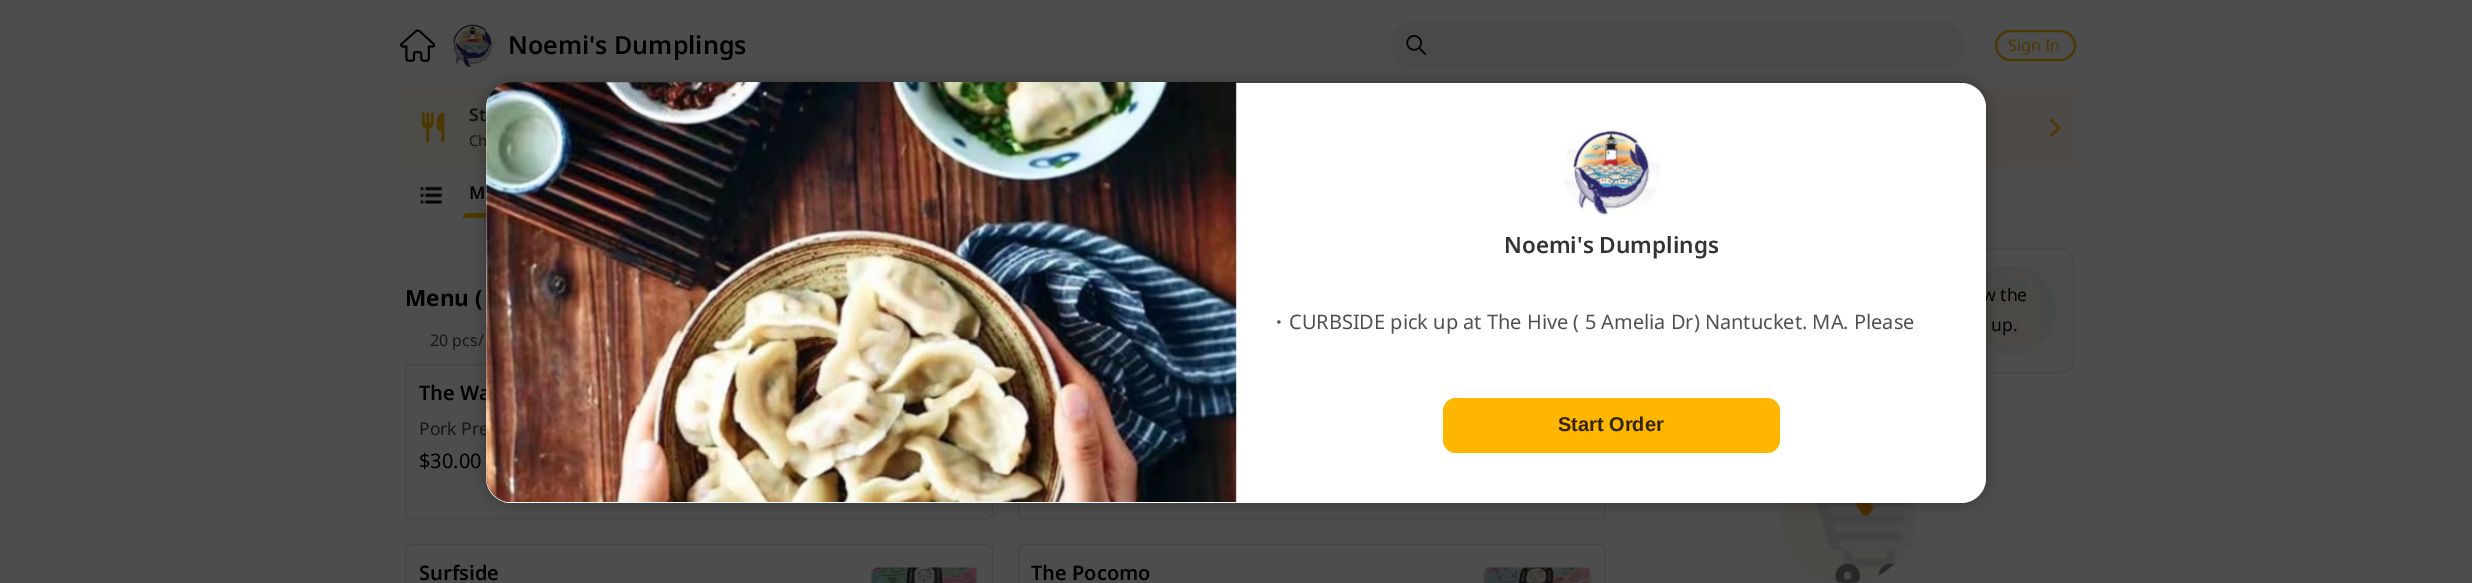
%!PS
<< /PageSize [2472 583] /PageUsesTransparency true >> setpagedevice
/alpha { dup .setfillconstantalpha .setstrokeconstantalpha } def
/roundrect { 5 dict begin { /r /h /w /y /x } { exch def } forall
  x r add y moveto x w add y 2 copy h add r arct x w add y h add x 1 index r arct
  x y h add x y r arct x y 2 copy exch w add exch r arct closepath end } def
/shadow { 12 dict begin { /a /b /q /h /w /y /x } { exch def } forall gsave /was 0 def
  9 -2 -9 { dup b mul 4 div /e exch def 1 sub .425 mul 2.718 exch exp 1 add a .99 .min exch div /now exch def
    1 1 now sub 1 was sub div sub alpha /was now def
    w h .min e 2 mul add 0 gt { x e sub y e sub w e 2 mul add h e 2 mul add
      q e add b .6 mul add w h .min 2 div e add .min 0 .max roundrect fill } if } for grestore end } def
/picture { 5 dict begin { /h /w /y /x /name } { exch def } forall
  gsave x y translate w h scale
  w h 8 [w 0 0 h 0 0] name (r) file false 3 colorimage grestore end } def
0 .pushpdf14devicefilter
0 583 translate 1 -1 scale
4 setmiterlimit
0.302 setgray
0 0 2472 583 rectfill
(img1.rgb) 400 29 36 33 picture
(img2.rgb) 448 24 49 44 picture
/NotoSans-SemiBold [25 0 0 -25 0 0] selectfont
0 setgray
508 54 moveto (Noemi's Dumplings) show
0.286 setgray
1391 21 574 48 23 roundrect fill
(img3.rgb) 1406 35 21 20 picture
0.302 0.216 0 setrgbcolor
2 setlinewidth
1996 31 79 29 14.5 roundrect stroke
/NotoSans-Regular [16 0 0 -16 0 0] selectfont
2008 51 moveto (Sign In) show
gsave newpath 399 89 moveto 2074 89 lineto 2074 166 lineto 399 166 lineto closepath clip newpath
<< /ShadingType 2 /ColorSpace /DeviceRGB /Coords [399 128 2074 127] /Extend [true true] /Function << /FunctionType 2 /Domain [0 1] /C0 [0.302 0.298 0.282] /C1 [0.302 0.29 0.278] /N 1 >> >> shfill grestore
(img4.rgb) 421 112 24 31 picture
/NotoSans-SemiBold [17.5 0 0 -17.5 0 0] selectfont
0.059 setgray
469 121 moveto (St) show
/NotoSans-Regular [15 0 0 -15 0 0] selectfont
0.082 setgray
469 146 moveto (Ch) show
0.302 0.216 0 setrgbcolor
newpath 2049.5 135.5 moveto 2051.5 137 lineto 2060.5 128 lineto 2051.5 118.5 lineto 2049.5 120 lineto 2057.5 128 lineto closepath fill
(img5.rgb) 419 186 24 18 picture
/NotoSans-SemiBold [17.5 0 0 -17.5 0 0] selectfont
0 setgray
469 199 moveto (M) show
0.302 0.216 0 setrgbcolor
newpath 468 213 moveto 519 213 lineto 522 213 524 215 524 218 curveto 463 218 lineto 463 215 465 213 468 213 curveto closepath fill
0.267 setgray
1 setlinewidth
405.5 364.5 587 154 5.5 roundrect stroke
1018.5 364.5 586 154 5.5 roundrect stroke
(img10.rgb) 1986 265 70 90 picture
0.271 setgray
1624.5 248.5 449 124 12.5 roundrect stroke
(img11.rgb) 1778 503 139 80 picture
0 setgray
486 83 1500 420 25 7.5 0.3 shadow
/NotoSans-SemiBold [20 0 0 -20 0 0] selectfont
419 400 moveto (The Wa) show
/NotoSans-Regular [17.5 0 0 -17.5 0 0] selectfont
0.082 setgray
419 435 moveto (Pork Pre) show
0 setgray
1982 301 moveto (w the) show
1 setgray
486 83 1500 420 25 roundrect fill
(img6.rgb) 486 82 751 420 picture
(img7.rgb) 1563 130 97 86 picture
/NotoSans-SemiBold [22.5 0 0 -22.5 0 0] selectfont
0.2 setgray
1504 253 moveto (Noemi's Dumplings) show
/NotoSans-Bold [20 0 0 -20 0 0] selectfont
0.314 setgray
1276 329 moveto (·) show
/NotoSans-Regular [20 0 0 -20 0 0] selectfont
1289 329 moveto (CURBSIDE pick up at The Hive \( 5 Amelia Dr\) Nantucket. MA. Please) show
1 0.714 0 setrgbcolor
1443 398 337 55 13 roundrect fill
/LiberationSans-Bold [20 0 0 -20 0 0] selectfont
0.2 0.141 0 setrgbcolor
1558 431 moveto (Start Order) show
/NotoSans-Bold [22.5 0 0 -22.5 0 0] selectfont
0 setgray
405 306 moveto (Menu \() show
/NotoSans-Regular [16 0 0 -16 0 0] selectfont
0.082 setgray
430 346 moveto (20 pcs/) show
/NotoSans-Regular [20 0 0 -20 0 0] selectfont
0 setgray
419 468 moveto ($30.00) show
0.267 setgray
405.5 544.5 587 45 5.5 roundrect stroke
/NotoSans-SemiBold [20 0 0 -20 0 0] selectfont
0 setgray
419 580 moveto (Surfside) show
(img8.rgb) 871 567 106 16 picture
0.267 setgray
1018.5 544.5 586 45 5.5 roundrect stroke
0 setgray
1031 580 moveto (The Pocomo) show
(img9.rgb) 1483 567 109 16 picture
/NotoSans-Regular [17.5 0 0 -17.5 0 0] selectfont
1991 331 moveto (up.) show
.poppdf14devicefilter showpage
